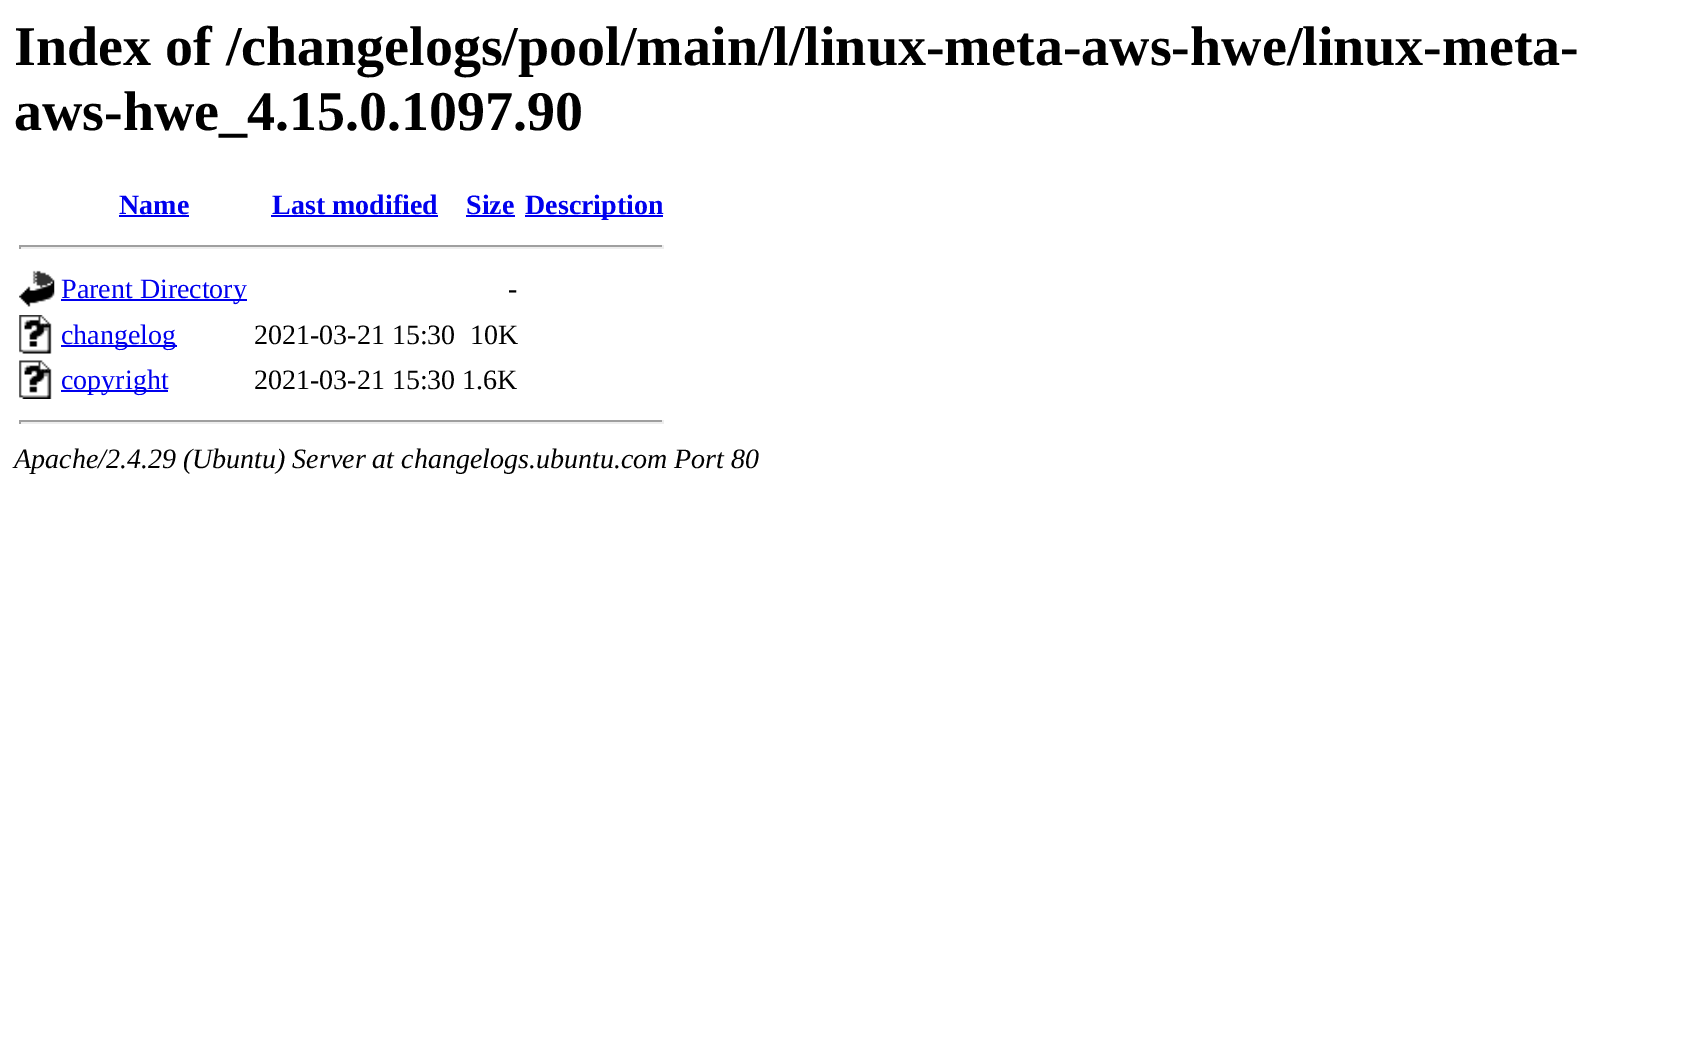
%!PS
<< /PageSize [1683 1058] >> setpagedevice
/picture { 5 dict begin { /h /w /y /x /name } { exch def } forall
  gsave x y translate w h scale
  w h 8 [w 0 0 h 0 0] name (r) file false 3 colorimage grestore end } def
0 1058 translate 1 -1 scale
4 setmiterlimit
1 setgray
0 0 1683 1058 rectfill
/LiberationSerif-Bold [56 0 0 -56 0 0] selectfont
0 setgray
14 65 moveto (Index of /changelogs/pool/main/l/linux-meta-aws-hwe/linux-meta-) show
14 130 moveto (aws-hwe_4.15.0.1097.90) show
/LiberationSerif-Bold [28 0 0 -28 0 0] selectfont
0 0 0.933 setrgbcolor
119 214 moveto (Name) show
119 215 70 2 rectfill
272 214 moveto (Last modified) show
271 215 167 2 rectfill
466 214 moveto (Size) show
466 215 49 2 rectfill
525 215 138 2 rectfill
525 214 moveto (Description) show
0.624 setgray
19 245 644 2 rectfill
0.933 setgray
662 245 2 4 rectfill
19 247 644 2 rectfill
0.624 setgray
19 245 2 4 rectfill
(img1.rgb) 19 270 36 37 picture
0 0 0.933 setrgbcolor
61 299 186 2 rectfill
/LiberationSerif-Regular [28 0 0 -28 0 0] selectfont
61 298 moveto (Parent Directory) show
0 setgray
508 298 moveto (-) show
(img2.rgb) 19 315 33 39 picture
0 0 0.933 setrgbcolor
61 345 116 2 rectfill
61 344 moveto (changelog) show
0 setgray
254 344 moveto (2021-03-21 15:30) show
470 344 moveto (10K) show
(img3.rgb) 19 360 33 39 picture
0 0 0.933 setrgbcolor
61 390 107 2 rectfill
61 389 moveto (copyright) show
0 setgray
254 389 moveto (2021-03-21 15:30 1.6K) show
0.624 setgray
19 420 644 2 rectfill
0.933 setgray
662 420 2 4 rectfill
19 422 644 2 rectfill
0.624 setgray
19 420 2 4 rectfill
/LiberationSerif-Italic [28 0 0 -28 0 0] selectfont
0 setgray
14 468 moveto (Apache/2.4.29 \(Ubuntu\) Server at changelogs.ubuntu.com Port 80) show
showpage
